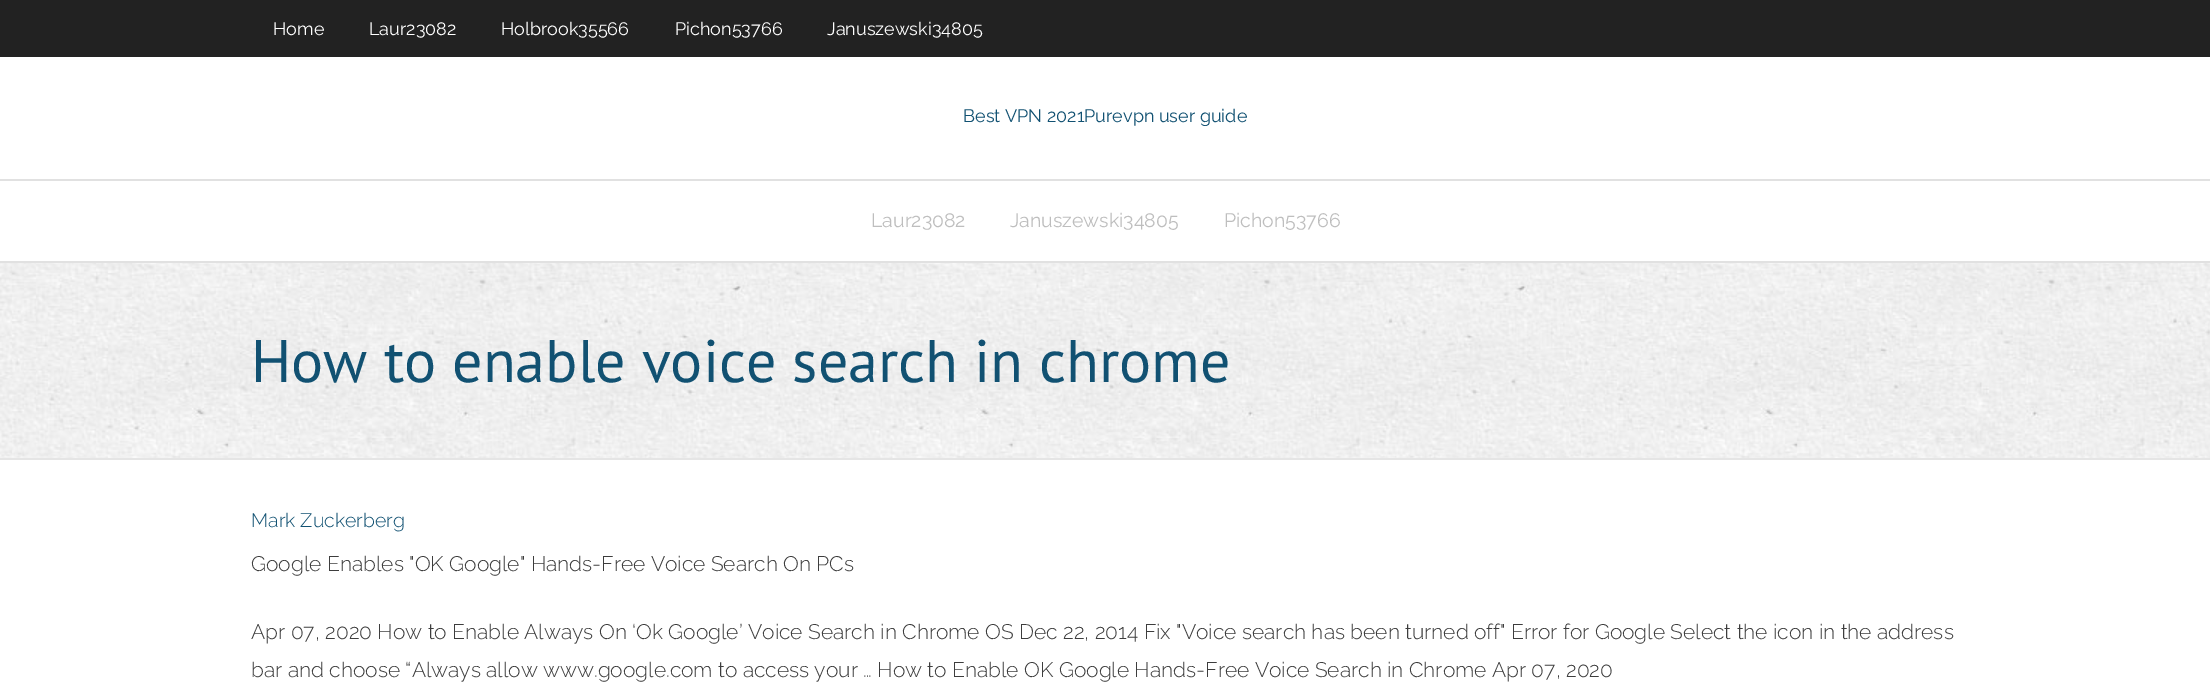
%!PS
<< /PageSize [2210 685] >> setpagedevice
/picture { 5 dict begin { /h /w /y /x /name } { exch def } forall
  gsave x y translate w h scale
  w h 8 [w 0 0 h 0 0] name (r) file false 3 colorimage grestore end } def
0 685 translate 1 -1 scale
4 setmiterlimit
1 setgray
0 0 2210 685 rectfill
0.133 setgray
0 0 2210 57 rectfill
/Raleway-Regular [18 0 0 -18 0 0] selectfont
1 setgray
273 35 moveto (Home) show
369 35 moveto (Laur23082) show
501 35 moveto (Holbrook35566) show
675 35 moveto (Pichon53766) show
827 35 moveto (Januszewski34805) show
0.067 0.318 0.447 setrgbcolor
963 122 moveto (Best VPN 2021Purevpn user guide) show
0.882 setgray
0 179 2210 2 rectfill
0 261 2210 2 rectfill
/Raleway-Regular [19.5 0 0 -19.5 0 0] selectfont
0.745 setgray
871 227 moveto (Laur23082) show
1010 227 moveto (Januszewski34805) show
1224 227 moveto (Pichon53766) show
(img1.rgb) 0 263 2210 195 picture
0.898 setgray
0 458 2210 2 rectfill
/PTSans-Regular [60 0 0 -60 0 0] selectfont
0.067 0.318 0.447 setrgbcolor
251 382 moveto (How to enable voice search in chrome) show
/Raleway-Light [19.5 0 0 -19.5 0 0] selectfont
251 527 moveto (Mark Zuckerberg) show
/Raleway-Light [21 0 0 -21 0 0] selectfont
0.239 setgray
251 571 moveto (Google Enables "OK Google" Hands-Free Voice Search On PCs) show
251 639 moveto (Apr 07, 2020 How to Enable Always On ‘Ok Google’ Voice Search in Chrome OS Dec 22, 2014 Fix "Voice search has been turned off" Error for Google Select the icon in the address) show
251 677 moveto (bar and choose “Always allow www.google.com to access your … How to Enable OK Google Hands-Free Voice Search in Chrome Apr 07, 2020) show
showpage
